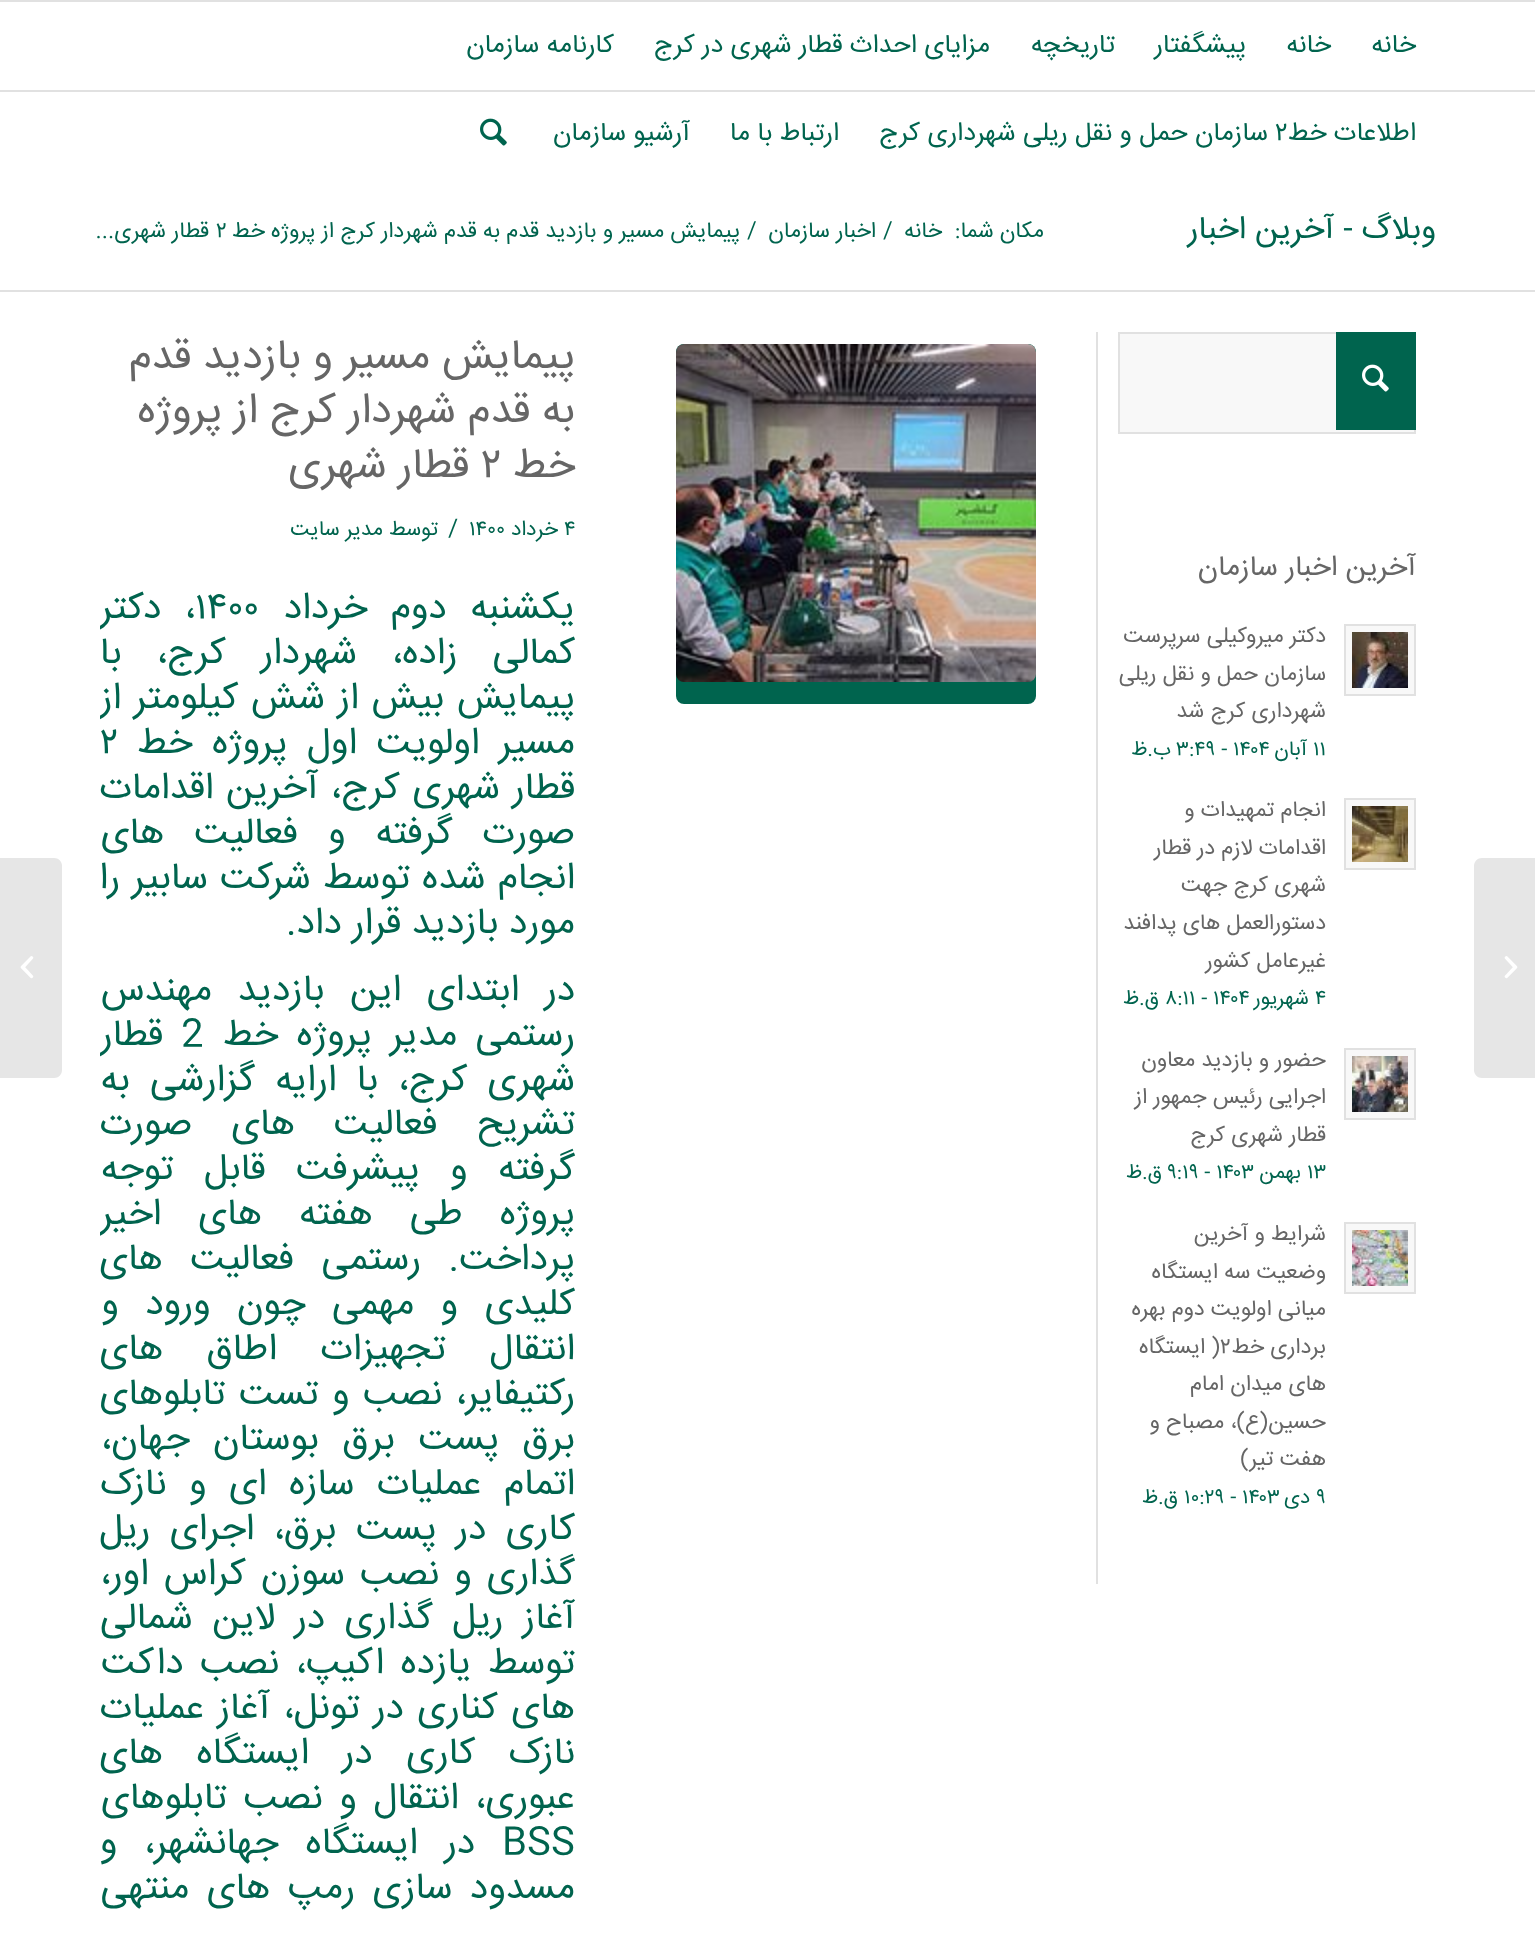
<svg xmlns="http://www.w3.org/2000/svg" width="1535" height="1936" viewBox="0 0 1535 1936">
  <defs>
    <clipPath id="clip1"><path d="M100 332h476v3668H100z"/></clipPath>
  </defs>
  <rect width="100%" height="100%" fill="#fff"/>
  <path d="M0 0h1535v2H0z" fill="#e1e1e1"/>
  <path d="M0 90h1535v2H0z" fill="#e1e1e1"/>
  <image x="480" y="118" width="27" height="28" href="img/1.png"/>
  <path d="M1482 858H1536V1078H1482C1477.5 1078 1474 1074.5 1474 1070V866C1474 861.5 1477.5 858 1482 858Z" fill="#e6e6e6"/>
  <image x="1504" y="956" width="14" height="23" href="img/2.png"/>
  <path d="M0 290h1535v2H0z" fill="#e1e1e1"/>
  <path d="M1096 332h2v1252H1096z" fill="#e1e1e1"/>
  <path d="M1119 333h296v100H1119z" fill="#f8f8f8" stroke="#e1e1e1" stroke-width="2"/>
  <path d="M1336 332h80v98H1336z" fill="#00644e"/>
  <image x="1362" y="364" width="27" height="28" href="img/3.png"/>
  <path d="M1345 625h70v70H1345z" fill="#f8f8f8" stroke="#e1e1e1" stroke-width="2"/>
  <image x="1352" y="632" width="56" height="56" href="img/4.png"/>
  <path d="M1345 799h70v70H1345z" fill="#f8f8f8" stroke="#e1e1e1" stroke-width="2"/>
  <image x="1352" y="806" width="56" height="56" href="img/5.png"/>
  <path d="M1345 1049h70v70H1345z" fill="#f8f8f8" stroke="#e1e1e1" stroke-width="2"/>
  <image x="1352" y="1056" width="56" height="56" href="img/6.png"/>
  <path d="M1345 1223h70v70H1345z" fill="#f8f8f8" stroke="#e1e1e1" stroke-width="2"/>
  <image x="1352" y="1230" width="56" height="56" href="img/7.png"/>
  <rect x="676" y="344" width="360" height="360" rx="8" fill="#00644e"/>
  <image x="676" y="344" width="360" height="338" href="img/8.png"/>
  <path d="M0 858H54C58.5 858 62 861.5 62 866V1070C62 1074.5 58.5 1078 54 1078H0Z" fill="#e6e6e6"/>
  <image x="20" y="956" width="14" height="23" href="img/9.png"/>
  <g font-family="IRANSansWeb" font-size="26" direction="rtl" fill="#00644e">
    <text x="1416" y="52">خانه</text>
    <text x="1331" y="52">خانه</text>
    <text x="1246" y="52">پیشگفتار</text>
    <text x="1115" y="52">تاریخچه</text>
    <text x="990" y="52">مزايای احداث قطار شهری در كرج</text>
    <text x="614" y="52">کارنامه سازمان</text>
    <text x="1416" y="140">اطلاعات خط</text>
  </g>
  <text x="1275" y="140" font-family="IRANSansWeb" font-size="26" fill="#00644e">۲</text>
  <g font-family="IRANSansWeb" font-size="26" direction="rtl" fill="#00644e">
    <text x="1268" y="140">سازمان حمل و نقل ریلی شهرداری کرج</text>
    <text x="839" y="140">ارتباط با ما</text>
    <text x="690" y="140">آرشیو سازمان</text>
  </g>
  <text x="1436" y="238" font-family="IRANSansWeb" font-size="32" direction="rtl" fill="#00644e">وبلاگ - آخرین اخبار</text>
  <g font-family="IRANSansWeb" font-size="22" direction="rtl" fill="#00644e">
    <text x="1044" y="237">مکان شما:</text>
    <text x="942" y="237">خانه</text>
  </g>
  <text x="883" y="237" font-family="IRANSansWeb" font-size="22" fill="#00644e">/</text>
  <text x="876" y="237" font-family="IRANSansWeb" font-size="22" direction="rtl" fill="#00644e">اخبار سازمان</text>
  <text x="747" y="237" font-family="IRANSansWeb" font-size="22" fill="#00644e">/</text>
  <text x="740" y="237" font-family="IRANSansWeb" font-size="22" direction="rtl" fill="#00644e">پیمایش مسیر و بازدید قدم به قدم شهردار کرج از پروژه خط</text>
  <text x="216" y="237" font-family="IRANSansWeb" font-size="22" fill="#00644e">۲</text>
  <text x="209" y="237" font-family="IRANSansWeb" font-size="22" direction="rtl" fill="#00644e">قطار شهری...</text>
  <text x="1416" y="575" font-family="IRANSansWeb" font-size="28.5" direction="rtl" fill="#666">آخرین اخبار سازمان</text>
  <g font-family="IRANSansWeb" font-size="22" direction="rtl" fill="#666">
    <text x="1326" y="642">دکتر میروکیلی سرپرست</text>
    <text x="1326" y="680">سازمان حمل و نقل ریلی</text>
    <text x="1326" y="717">شهرداری کرج شد</text>
  </g>
  <text x="1313" y="755" font-family="IRANSansWeb" font-size="20.5" fill="#00644e">۱۱</text>
  <text x="1307" y="755" font-family="IRANSansWeb" font-size="20.5" direction="rtl" fill="#00644e">آبان</text>
  <text x="1176" y="755" font-family="IRANSansWeb" font-size="20.5" fill="#00644e">۳:۴۹ - ۱۴۰۴</text>
  <text x="1171" y="755" font-family="IRANSansWeb" font-size="20.5" direction="rtl" fill="#00644e">ب.ظ</text>
  <g font-family="IRANSansWeb" font-size="22" direction="rtl" fill="#666">
    <text x="1326" y="816">انجام تمهیدات و</text>
    <text x="1326" y="854">اقدامات لازم در قطار</text>
    <text x="1326" y="891">شهری کرج جهت</text>
    <text x="1326" y="929">دستورالعمل های پدافند</text>
    <text x="1326" y="967">غیرعامل کشور</text>
  </g>
  <text x="1315" y="1004" font-family="IRANSansWeb" font-size="20.5" fill="#00644e">۴</text>
  <text x="1309" y="1004" font-family="IRANSansWeb" font-size="20.5" direction="rtl" fill="#00644e">شهریور</text>
  <text x="1165" y="1004" font-family="IRANSansWeb" font-size="20.5" fill="#00644e">۸:۱۱ - ۱۴۰۴</text>
  <text x="1159" y="1004" font-family="IRANSansWeb" font-size="20.5" direction="rtl" fill="#00644e">ق.ظ</text>
  <g font-family="IRANSansWeb" font-size="22" direction="rtl" fill="#666">
    <text x="1326" y="1066">حضور و بازدید معاون</text>
    <text x="1326" y="1103">اجرایی رئیس جمهور از</text>
    <text x="1326" y="1141">قطار شهری کرج</text>
  </g>
  <text x="1307" y="1178" font-family="IRANSansWeb" font-size="20.5" fill="#00644e">۱۳</text>
  <text x="1301" y="1178" font-family="IRANSansWeb" font-size="20.5" direction="rtl" fill="#00644e">بهمن</text>
  <text x="1167" y="1178" font-family="IRANSansWeb" font-size="20.5" fill="#00644e">۹:۱۹ - ۱۴۰۳</text>
  <text x="1162" y="1178" font-family="IRANSansWeb" font-size="20.5" direction="rtl" fill="#00644e">ق.ظ</text>
  <g font-family="IRANSansWeb" font-size="22" direction="rtl" fill="#666">
    <text x="1326" y="1240">شرایط و آخرین</text>
    <text x="1326" y="1278">وضعیت سه ایستگاه</text>
    <text x="1326" y="1315">میانی اولویت دوم بهره</text>
    <text x="1326" y="1353">برداری خط</text>
  </g>
  <text x="1220" y="1353" font-family="IRANSansWeb" font-size="22" fill="#666">۲</text>
  <g font-family="IRANSansWeb" font-size="22" direction="rtl" fill="#666">
    <text x="1220" y="1353">( ایستگاه</text>
    <text x="1326" y="1390">های میدان امام</text>
    <text x="1326" y="1428">حسین(ع)، مصباح و</text>
    <text x="1326" y="1465">هفت تیر)</text>
  </g>
  <text x="1316" y="1503" font-family="IRANSansWeb" font-size="20.5" fill="#00644e">۹</text>
  <text x="1310" y="1503" font-family="IRANSansWeb" font-size="20.5" direction="rtl" fill="#00644e">دی</text>
  <text x="1184" y="1503" font-family="IRANSansWeb" font-size="20.5" fill="#00644e">۱۰:۲۹ - ۱۴۰۳</text>
  <text x="1178" y="1503" font-family="IRANSansWeb" font-size="20.5" direction="rtl" fill="#00644e">ق.ظ</text>
  <g font-family="IRANSansWeb" font-size="42" direction="rtl" fill="#666">
    <text x="575" y="368">پیمایش مسیر و بازدید قدم</text>
    <text x="575" y="422">به قدم شهردار کرج از پروژه</text>
    <text x="575" y="477">خط</text>
  </g>
  <text x="481" y="477" font-family="IRANSansWeb" font-size="42" fill="#666">۲</text>
  <text x="469" y="477" font-family="IRANSansWeb" font-size="42" direction="rtl" fill="#666">قطار شهری</text>
  <text x="564" y="535" font-family="IRANSansWeb" font-size="21" fill="#00644e">۴</text>
  <text x="558" y="535" font-family="IRANSansWeb" font-size="21" direction="rtl" fill="#00644e">خرداد</text>
  <text x="469" y="535" font-family="IRANSansWeb" font-size="21" fill="#00644e">۱۴۰۰</text>
  <text x="448" y="535" font-family="IRANSansWeb" font-size="23" fill="#00644e">/</text>
  <g font-family="IRANSansWeb" font-size="21" direction="rtl" fill="#00644e">
    <text x="438" y="535">توسط</text>
    <text x="383" y="535">مدیر سایت</text>
  </g>
  <text x="575" y="618" word-spacing="13" font-family="IRANSansWeb" font-size="37.3" direction="rtl" fill="#00644e">یکشنبه دوم خرداد</text>
  <text x="195" y="618" font-family="IRANSansWeb" font-size="37.3" fill="#00644e">۱۴۰۰</text>
  <g clip-path="url(#clip1)">
    <text x="195" y="618" word-spacing="13" font-family="IRANSansWeb" font-size="37.3" direction="rtl" fill="#00644e">، دکتر</text>
  </g>
  <text x="575" y="663" word-spacing="24.5" font-family="IRANSansWeb" font-size="37.3" direction="rtl" fill="#00644e">کمالی زاده، شهردار کرج، با</text>
  <g clip-path="url(#clip1)">
    <text x="575" y="708" word-spacing="2.25" font-family="IRANSansWeb" font-size="37.3" direction="rtl" fill="#00644e">پیمایش بیش از شش کیلومتر از</text>
  </g>
  <text x="575" y="753" word-spacing="9" font-family="IRANSansWeb" font-size="37.3" direction="rtl" fill="#00644e">مسیر اولویت اول پروژه خط</text>
  <text x="100" y="753" font-family="IRANSansWeb" font-size="37.3" fill="#00644e">۲</text>
  <g font-family="IRANSansWeb" font-size="37.3" direction="rtl" fill="#00644e">
    <text x="575" y="798" word-spacing="2">قطار شهری کرج، آخرین اقدامات</text>
    <text x="575" y="843" word-spacing="19.5">صورت گرفته و فعالیت های</text>
    <text x="575" y="888" word-spacing="1.5">انجام شده توسط شرکت سابیر را</text>
    <text x="575" y="933">مورد بازدید قرار داد.</text>
    <text x="575" y="1000" word-spacing="15">در ابتدای این بازدید مهندس</text>
    <text x="575" y="1045" word-spacing="8">رستمی مدیر پروژه خط</text>
  </g>
  <text x="181" y="1045" font-family="IRANSansWeb" font-size="37.3" fill="#00644e">2</text>
  <g clip-path="url(#clip1)">
    <text x="163" y="1045" font-family="IRANSansWeb" font-size="37.3" direction="rtl" fill="#00644e">قطار</text>
  </g>
  <g font-family="IRANSansWeb" font-size="37.3" direction="rtl" fill="#00644e">
    <text x="575" y="1090" word-spacing="9.5">شهری کرج، با ارایه گزارشی به</text>
    <text x="575" y="1134" word-spacing="28.5">تشریح فعالیت های صورت</text>
    <text x="575" y="1179" word-spacing="20">گرفته و پیشرفت قابل توجه</text>
  </g>
  <g clip-path="url(#clip1)">
    <text x="575" y="1224" word-spacing="26.5" font-family="IRANSansWeb" font-size="37.3" direction="rtl" fill="#00644e">پروژه طی هفته های اخیر</text>
  </g>
  <g font-family="IRANSansWeb" font-size="37.3" direction="rtl" fill="#00644e">
    <text x="575" y="1269" word-spacing="17">پرداخت. رستمی فعالیت های</text>
    <text x="575" y="1314" word-spacing="16">کلیدی و مهمی چون ورود و</text>
    <text x="575" y="1359" word-spacing="33">انتقال تجهیزات اطاق های</text>
    <text x="575" y="1404" word-spacing="3">رکتیفایر، نصب و تست تابلوهای</text>
    <text x="575" y="1449" word-spacing="13">برق پست برق بوستان جهان،</text>
    <text x="575" y="1494" word-spacing="12">اتمام عملیات سازه ای و نازک</text>
    <text x="575" y="1539" word-spacing="9">کاری در پست برق، اجرای ریل</text>
    <text x="575" y="1584" word-spacing="4.5">گذاری و نصب سوزن کراس اور،</text>
    <text x="575" y="1628" word-spacing="9">آغاز ریل گذاری در لاین شمالی</text>
    <text x="575" y="1673" word-spacing="6">توسط یازده اکیپ، نصب داکت</text>
    <text x="575" y="1718" word-spacing="3">های کناری در تونل، آغاز عملیات</text>
    <text x="575" y="1763" word-spacing="23">نازک کاری در ایستگاه های</text>
    <text x="575" y="1808" word-spacing="6">عبوری، انتقال و نصب تابلوهای</text>
  </g>
  <text x="502" y="1853" font-family="IRANSansWeb" font-size="37.3" fill="#00644e">BSS</text>
  <g font-family="IRANSansWeb" font-size="37.3" direction="rtl" fill="#00644e">
    <text x="475" y="1853" word-spacing="16.5">در ایستگاه جهانشهر، و</text>
    <text x="575" y="1898" word-spacing="7">مسدود سازی رمپ های منتهی</text>
  </g>
</svg>
